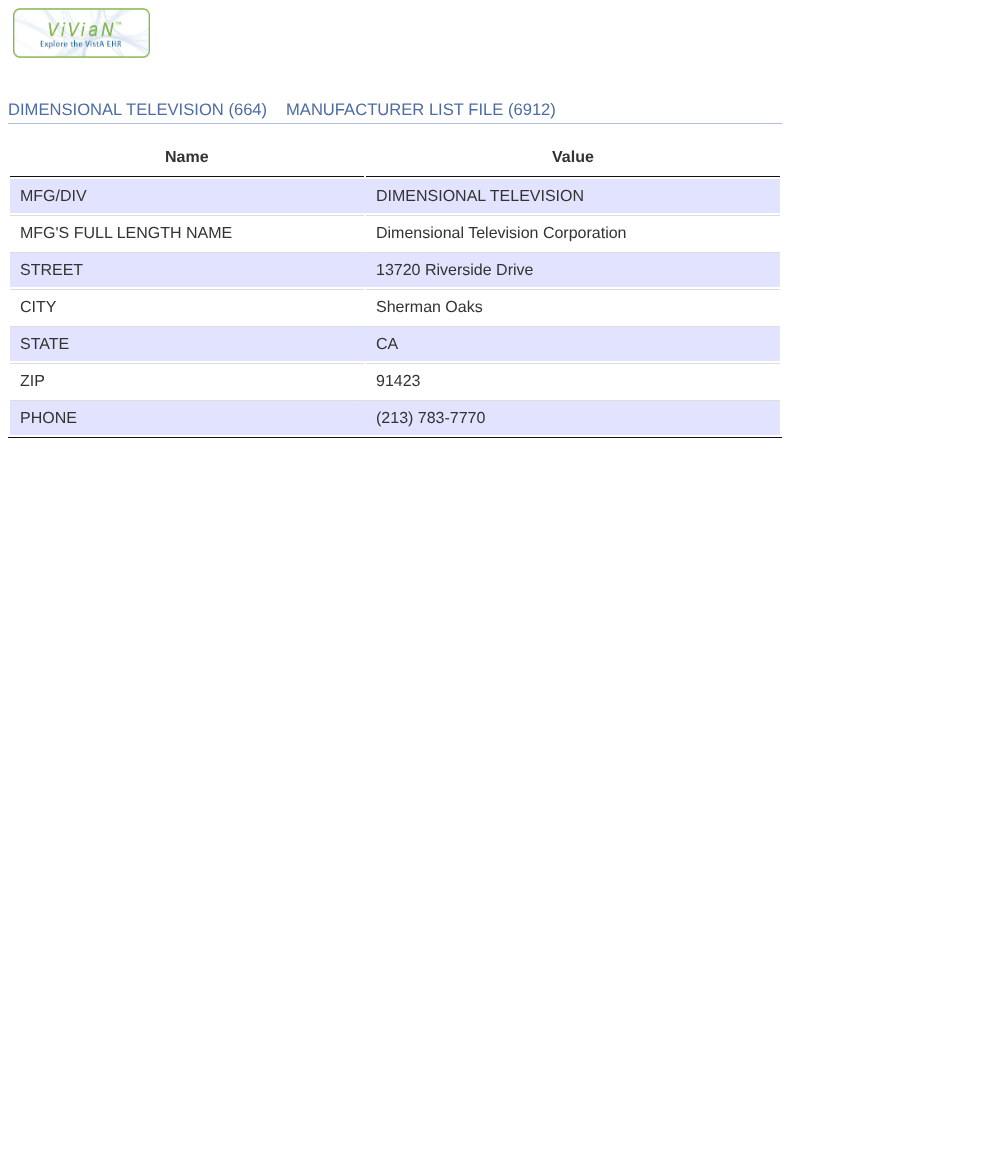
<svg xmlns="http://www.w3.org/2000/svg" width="983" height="1161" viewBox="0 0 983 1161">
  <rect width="100%" height="100%" fill="#fff"/>
  <image x="13" y="8" width="137" height="50" href="img/1.png"/>
  <path d="M8 123h774v1H8z" fill="#b0bed9"/>
  <path d="M8 437h774v1H8z" fill="#111"/>
  <path d="M10 176h354v1H10z" fill="#111"/>
  <path d="M366 176h414v1H366z" fill="#111"/>
  <path d="M10 179h770v34H10z" fill="#e2e4ff"/>
  <path d="M10 215h354v1H10z" fill="#ddd"/>
  <path d="M366 215h414v1H366z" fill="#ddd"/>
  <path d="M10 252h770v35H10z" fill="#e2e4ff"/>
  <path d="M10 252h354v1H10z" fill="#ddd"/>
  <path d="M366 252h414v1H366z" fill="#ddd"/>
  <path d="M10 289h354v1H10z" fill="#ddd"/>
  <path d="M366 289h414v1H366z" fill="#ddd"/>
  <path d="M10 326h770v35H10z" fill="#e2e4ff"/>
  <path d="M10 326h354v1H10z" fill="#ddd"/>
  <path d="M366 326h414v1H366z" fill="#ddd"/>
  <path d="M10 363h354v1H10z" fill="#ddd"/>
  <path d="M366 363h414v1H366z" fill="#ddd"/>
  <path d="M10 400h770v35H10z" fill="#e2e4ff"/>
  <path d="M10 400h354v1H10z" fill="#ddd"/>
  <path d="M366 400h414v1H366z" fill="#ddd"/>
  <g font-family="Liberation Sans" font-size="16.6" fill="#4e6ca3">
    <text x="8" y="115">DIMENSIONAL TELEVISION (664)</text>
    <text x="286" y="115">MANUFACTURER LIST FILE (6912)</text>
  </g>
  <g font-family="Liberation Sans" font-size="16" font-weight="bold" fill="#333">
    <text x="165" y="162">Name</text>
    <text x="552" y="162">Value</text>
  </g>
  <g font-family="Liberation Sans" font-size="16" fill="#333">
    <text x="20" y="201">MFG/DIV</text>
    <text x="376" y="201">DIMENSIONAL TELEVISION</text>
    <text x="20" y="238">MFG'S FULL LENGTH NAME</text>
    <text x="376" y="238">Dimensional Television Corporation</text>
    <text x="20" y="275">STREET</text>
    <text x="376" y="275">13720 Riverside Drive</text>
    <text x="20" y="312">CITY</text>
    <text x="376" y="312">Sherman Oaks</text>
    <text x="20" y="349">STATE</text>
    <text x="376" y="349">CA</text>
    <text x="20" y="386">ZIP</text>
    <text x="376" y="386">91423</text>
    <text x="20" y="423">PHONE</text>
    <text x="376" y="423">(213) 783-7770</text>
  </g>
</svg>
